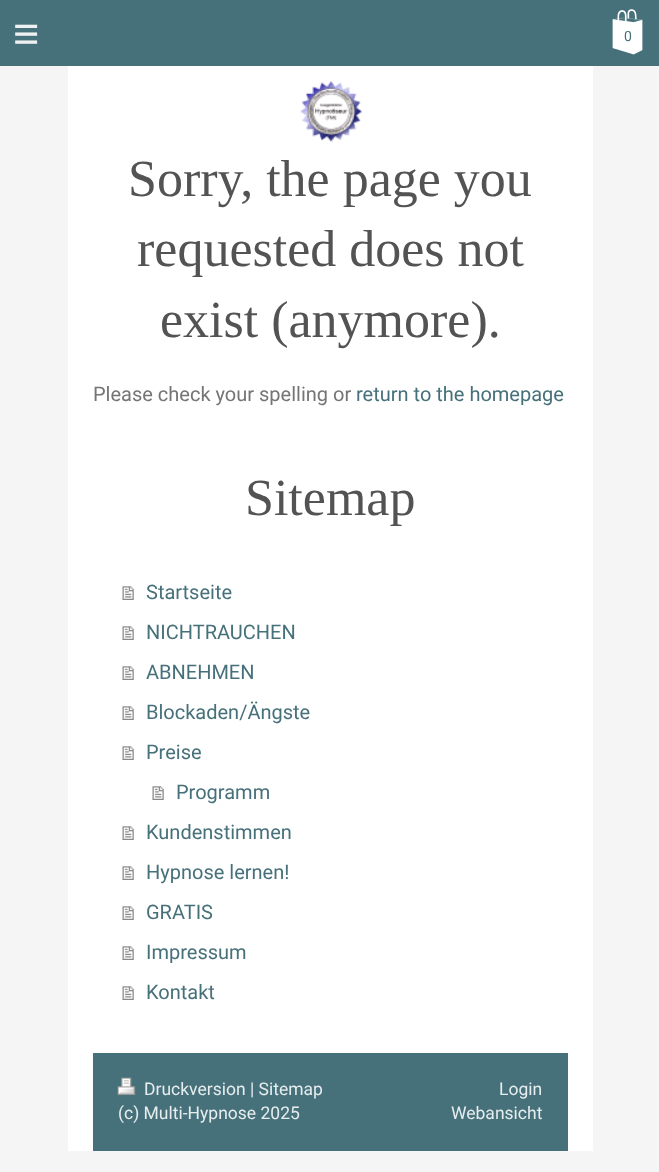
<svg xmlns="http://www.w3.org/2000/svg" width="659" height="1172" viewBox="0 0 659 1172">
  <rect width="100%" height="100%" fill="#f5f5f5"/>
  <path d="M0 0h659v66H0z" fill="#47717a"/>
  <image x="612" y="9" width="31" height="46" href="img/1.png"/>
  <path d="M68 66h525v1085H68z" fill="#fff"/>
  <image x="122" y="586" width="12" height="14" href="img/2.png"/>
  <image x="122" y="626" width="12" height="14" href="img/3.png"/>
  <image x="122" y="666" width="12" height="14" href="img/3.png"/>
  <image x="122" y="706" width="12" height="14" href="img/3.png"/>
  <image x="122" y="746" width="12" height="14" href="img/3.png"/>
  <image x="152" y="786" width="12" height="14" href="img/3.png"/>
  <image x="122" y="826" width="12" height="14" href="img/3.png"/>
  <image x="122" y="866" width="12" height="14" href="img/3.png"/>
  <image x="122" y="906" width="12" height="14" href="img/3.png"/>
  <image x="122" y="946" width="12" height="14" href="img/3.png"/>
  <image x="122" y="986" width="12" height="14" href="img/3.png"/>
  <image x="300" y="81" width="63" height="61" href="img/4.png"/>
  <path d="M93 1053h475v98H93z" fill="#47717a"/>
  <image x="117" y="1077" width="19" height="18" href="img/5.png"/>
  <text x="13" y="49" font-family="Liberation Sans" font-size="45" letter-spacing="13" fill="#edf1f2">≡</text>
  <text x="624" y="41" font-family="Roboto" font-size="14" fill="#47717a">0</text>
  <g font-family="Liberation Serif" font-size="52" fill="#535353">
    <text x="128" y="196">Sorry, the page you</text>
    <text x="137" y="266">requested does not</text>
    <text x="160" y="337">exist (anymore).</text>
  </g>
  <text x="93" y="401" font-family="Roboto" font-size="20" fill="#757575">Please check your spelling or</text>
  <text x="356" y="401" font-family="Roboto" font-size="20" fill="#47717a">return to the homepage</text>
  <text x="245" y="515" font-family="Liberation Serif" font-size="52" fill="#535353">Sitemap</text>
  <g font-family="Roboto" font-size="20" fill="#47717a">
    <text x="146" y="599">Startseite</text>
    <text x="146" y="639">NICHTRAUCHEN</text>
    <text x="146" y="679">ABNEHMEN</text>
    <text x="146" y="719">Blockaden/Ängste</text>
    <text x="146" y="759">Preise</text>
    <text x="176" y="799">Programm</text>
    <text x="146" y="839">Kundenstimmen</text>
    <text x="146" y="879">Hypnose lernen!</text>
    <text x="146" y="919">GRATIS</text>
    <text x="146" y="959">Impressum</text>
    <text x="146" y="999">Kontakt</text>
  </g>
  <g font-family="Roboto" font-size="17.5" fill="#e6edee">
    <text x="144" y="1095">Druckversion | Sitemap</text>
    <text x="118" y="1119">(c) Multi-Hypnose 2025</text>
    <text x="499" y="1095">Login</text>
    <text x="451" y="1119">Webansicht</text>
  </g>
</svg>
